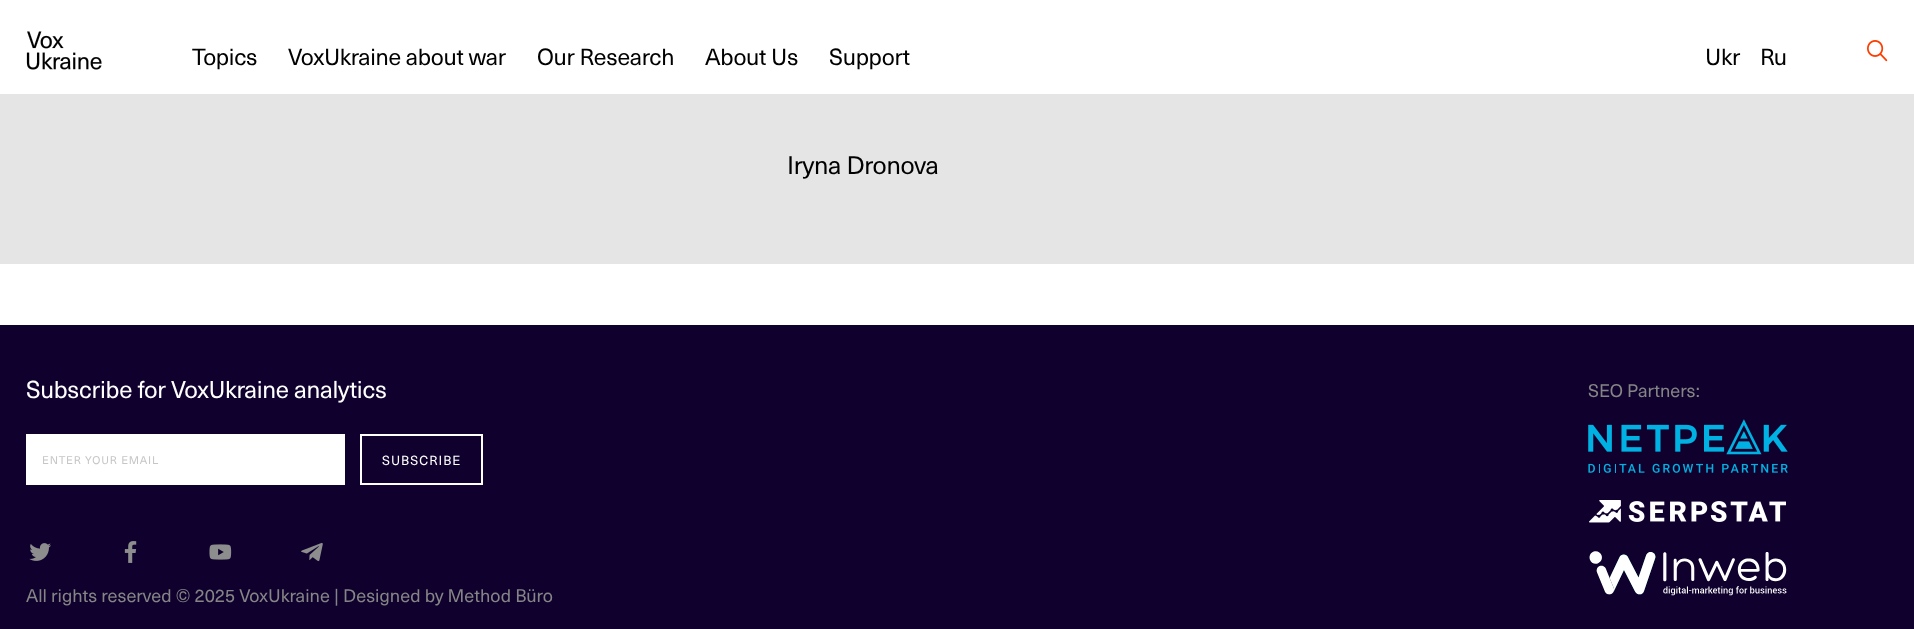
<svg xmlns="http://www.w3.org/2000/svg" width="1914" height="629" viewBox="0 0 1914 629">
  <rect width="100%" height="100%" fill="#fff"/>
  <image x="26" y="31" width="76" height="39" href="img/1.png"/>
  <image x="1867" y="40" width="21" height="22" href="img/2.png"/>
  <path d="M0 94h1914v170H0z" fill="#e5e5e5"/>
  <path d="M0 325h1914v304H0z" fill="#0f002e"/>
  <path d="M26 434h319v51H26z" fill="#fff"/>
  <path d="M361 435h121v49H361z" fill="none" stroke="#fff" stroke-width="2"/>
  <image x="29" y="543" width="22" height="18" href="img/3.png"/>
  <image x="124" y="541" width="13" height="22" href="img/4.png"/>
  <image x="209" y="544" width="23" height="16" href="img/5.png"/>
  <image x="301" y="542" width="22" height="20" href="img/6.png"/>
  <image x="1588" y="419" width="200" height="54" href="img/7.png"/>
  <image x="1589" y="500" width="197" height="23" href="img/8.png"/>
  <image x="1589" y="551" width="198" height="45" href="img/9.png"/>
  <g font-family="'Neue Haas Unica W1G'" font-size="23" letter-spacing="-0.3" fill="#010101">
    <text x="192" y="65">Topics</text>
    <text x="288" y="65">VoxUkraine about war</text>
    <text x="537" y="65">Our Research</text>
    <text x="705" y="65">About Us</text>
    <text x="829" y="65">Support</text>
    <text x="1705" y="65">Ukr</text>
    <text x="1760" y="65">Ru</text>
  </g>
  <text x="787" y="174" font-family="'Neue Haas Unica W1G'" font-size="25" letter-spacing="-0.3" fill="#010101">Iryna Dronova</text>
  <text x="26" y="398" font-family="'Neue Haas Unica W1G'" font-size="24" letter-spacing="-0.3" fill="#fff">Subscribe for VoxUkraine analytics</text>
  <text x="42" y="464" font-family="'Neue Haas Unica W1G'" font-size="11" letter-spacing="0.9" fill="#c6c6c6">ENTER YOUR EMAIL</text>
  <text x="382" y="465" font-family="'Neue Haas Unica W1G'" font-size="13" letter-spacing="1" fill="#fff">SUBSCRIBE</text>
  <g font-family="'Neue Haas Unica W1G'" font-size="18" fill="#858585">
    <text x="26" y="602">All rights reserved © 2025 VoxUkraine | Designed by Method Büro</text>
    <text x="1588" y="397">SEO Partners:</text>
  </g>
</svg>
